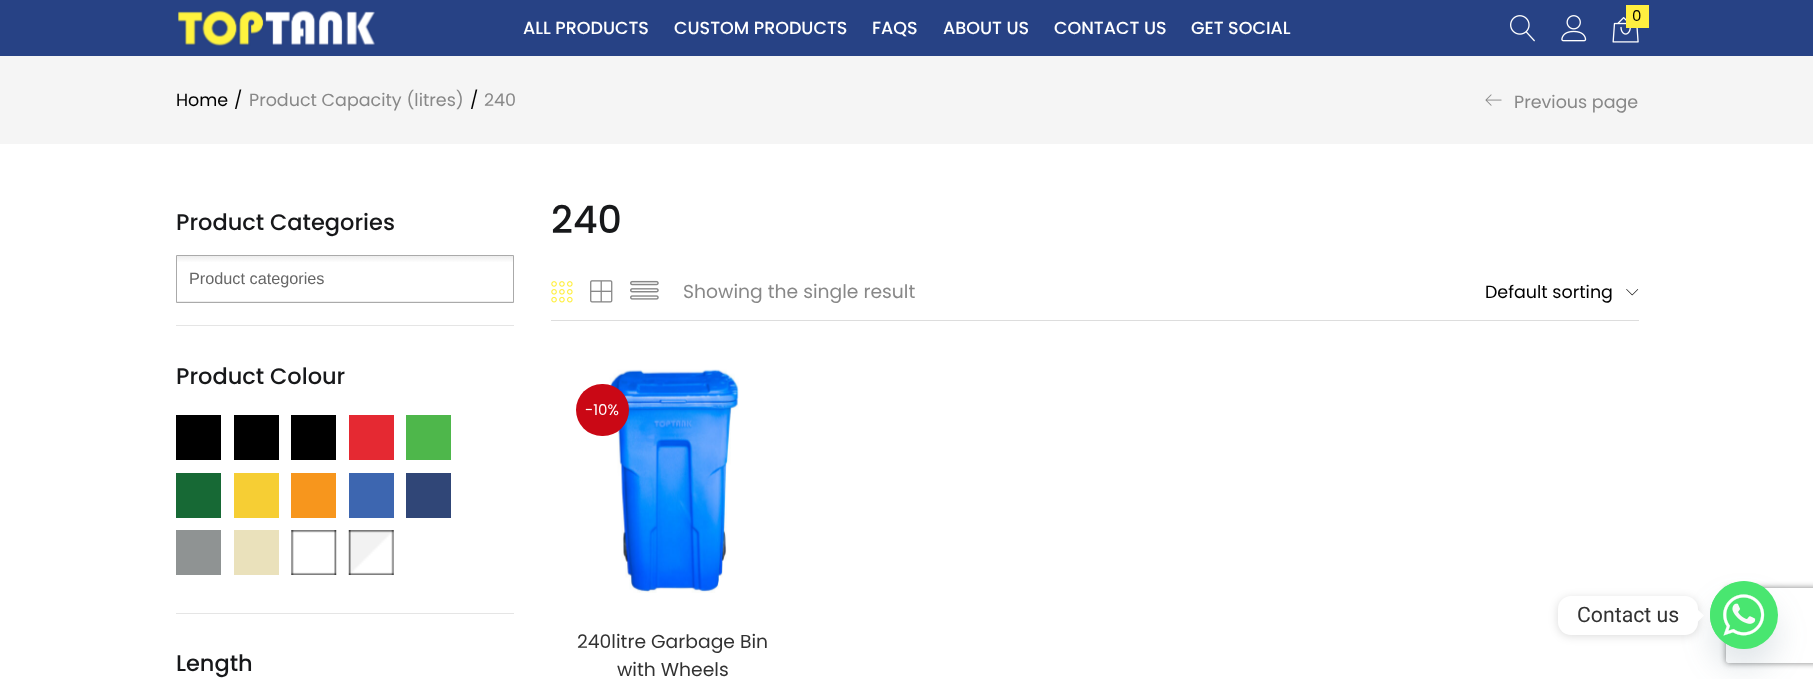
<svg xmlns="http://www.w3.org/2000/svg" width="1813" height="679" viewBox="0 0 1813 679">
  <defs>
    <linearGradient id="g1" gradientUnits="userSpaceOnUse" x1="345" y1="256" x2="345" y2="301"><stop offset="0.01" stop-color="#eee"/><stop offset="0.15" stop-color="#fff"/></linearGradient>
    <linearGradient id="g2" gradientUnits="userSpaceOnUse" x1="345" y1="301" x2="345" y2="346"><stop offset="0.01" stop-color="#eee"/><stop offset="0.15" stop-color="#fff"/></linearGradient>
    <clipPath id="clip1"><path d="M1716 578H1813V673H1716ZM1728.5 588H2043.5C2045 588 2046 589 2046 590.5V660.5C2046 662 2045 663 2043.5 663H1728.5C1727 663 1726 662 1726 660.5V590.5C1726 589 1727 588 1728.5 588Z" clip-rule="evenodd"/></clipPath>
  </defs>
  <rect width="100%" height="100%" fill="#fff"/>
  <path d="M0 0h1813v56H0z" fill="#274285"/>
  <image x="178" y="10" width="197" height="36" href="img/1.png"/>
  <image x="1510" y="15" width="25" height="27" href="img/2.png"/>
  <image x="1561" y="15" width="26" height="27" href="img/3.png"/>
  <image x="1612" y="17" width="27" height="26" href="img/4.png"/>
  <path d="M1626 5h23v23H1626z" fill="#ffef40"/>
  <path d="M0 56h1813v88H0z" fill="#f5f5f5"/>
  <image x="1485" y="94" width="17" height="12" href="img/5.png"/>
  <path d="M176 325h338v1H176z" fill="#e5e5e5"/>
  <path d="M177 256h336v6H177z" fill="url(#g1)"/>
  <path d="M176 301h338v1H176z" fill="url(#g2)"/>
  <path d="M176.5 255.5h337v47H176.5z" fill="none" stroke="#aaa"/>
  <path d="M176 613h338v1H176z" fill="#e5e5e5"/>
  <path d="M176 415h45v45H176z" fill="#000"/>
  <path d="M234 415h45v45H234z" fill="#000"/>
  <path d="M291 415h45v45H291z" fill="#000"/>
  <path d="M349 415h45v45H349z" fill="#e52932"/>
  <path d="M406 415h45v45H406z" fill="#4eb74b"/>
  <path d="M176 473h45v45H176z" fill="#176935"/>
  <path d="M234 473h45v45H234z" fill="#f6ce34"/>
  <path d="M291 473h45v45H291z" fill="#f7961d"/>
  <path d="M349 473h45v45H349z" fill="#3d66b0"/>
  <path d="M406 473h45v45H406z" fill="#304677"/>
  <path d="M176 530h45v45H176z" fill="#8f9393"/>
  <path d="M234 530h45v45H234z" fill="#eae1bb"/>
  <image x="291" y="530" width="46" height="45" href="img/6.png"/>
  <image x="348" y="530" width="46" height="45" href="img/7.png"/>
  <path d="M551 320h1088v1H551z" fill="#ddd"/>
  <image x="551" y="281" width="22" height="22" href="img/8.png"/>
  <image x="590" y="280" width="23" height="23" href="img/9.png"/>
  <image x="630" y="280" width="29" height="20" href="img/10.png"/>
  <image x="1626" y="289" width="13" height="7" href="img/11.png"/>
  <image x="606" y="369" width="133" height="224" href="img/12.png"/>
  <rect x="576" y="384" width="53" height="52" rx="26" fill="#ca0815"/>
  <g clip-path="url(#clip1)">
    <rect x="1726" y="588" width="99" height="75" rx="2.5" fill="#808080" filter="blur(3px)"/>
  </g>
  <rect x="1710" y="601" width="68" height="68" rx="34" fill="#49687e29" filter="blur(15px)"/>
  <circle cx="1744" cy="615" r="34" fill="#49e670"/>
  <image x="1710" y="581" width="55" height="68" href="img/13.png"/>
  <rect x="1558" y="598" width="140" height="38" rx="13" fill="#00000026" filter="blur(5px)"/>
  <rect x="1558" y="596" width="140" height="39" rx="13" fill="#fff"/>
  <path d="M1697.5 622V609.5L1704 615.5Z" fill="#fff"/>
  <text x="1632" y="21" font-family="Poppins" font-size="15" fill="#000">0</text>
  <g font-family="Poppins" font-size="17.5" font-weight="500" fill="#fff">
    <text x="523" y="34">ALL PRODUCTS</text>
    <text x="674" y="34">CUSTOM PRODUCTS</text>
    <text x="872" y="34">FAQS</text>
    <text x="943" y="34">ABOUT US</text>
    <text x="1054" y="34">CONTACT US</text>
    <text x="1191" y="34">GET SOCIAL</text>
  </g>
  <g font-family="Poppins" font-size="17.5" fill="#000">
    <text x="176" y="106">Home</text>
    <text x="234" y="106">/</text>
  </g>
  <text x="249" y="106" font-family="Poppins" font-size="17.5" fill="#888">Product Capacity (litres)</text>
  <text x="470" y="106" font-family="Poppins" font-size="17.5" fill="#000">/</text>
  <g font-family="Poppins" font-size="17.5" fill="#888">
    <text x="484" y="106">240</text>
    <text x="1514" y="108">Previous page</text>
  </g>
  <text x="176" y="230" font-family="Poppins" font-size="22.5" font-weight="500" fill="#17181a">Product Categories</text>
  <text x="189" y="284" font-family="Liberation Sans" font-size="16.25" fill="#666">Product categories</text>
  <g font-family="Poppins" font-size="22.5" font-weight="500" fill="#17181a">
    <text x="176" y="384">Product Colour</text>
    <text x="176" y="671">Length</text>
  </g>
  <text x="551" y="233" font-family="Poppins" font-size="38" font-weight="500" fill="#17181a">240</text>
  <text x="683" y="298" font-family="Poppins" font-size="18.75" fill="#888">Showing the single result</text>
  <text x="1485" y="298" font-family="Poppins" font-size="17.5" fill="#000">Default sorting</text>
  <text x="585" y="415" font-family="Poppins" font-size="15" fill="#fff">-10%</text>
  <g font-family="Poppins" font-size="18.75" fill="#323232">
    <text x="577" y="648">240litre Garbage Bin</text>
    <text x="617" y="676">with Wheels</text>
  </g>
  <text x="1577" y="622" font-family="Roboto" font-size="21.25" fill="#323232">Contact us</text>
</svg>
